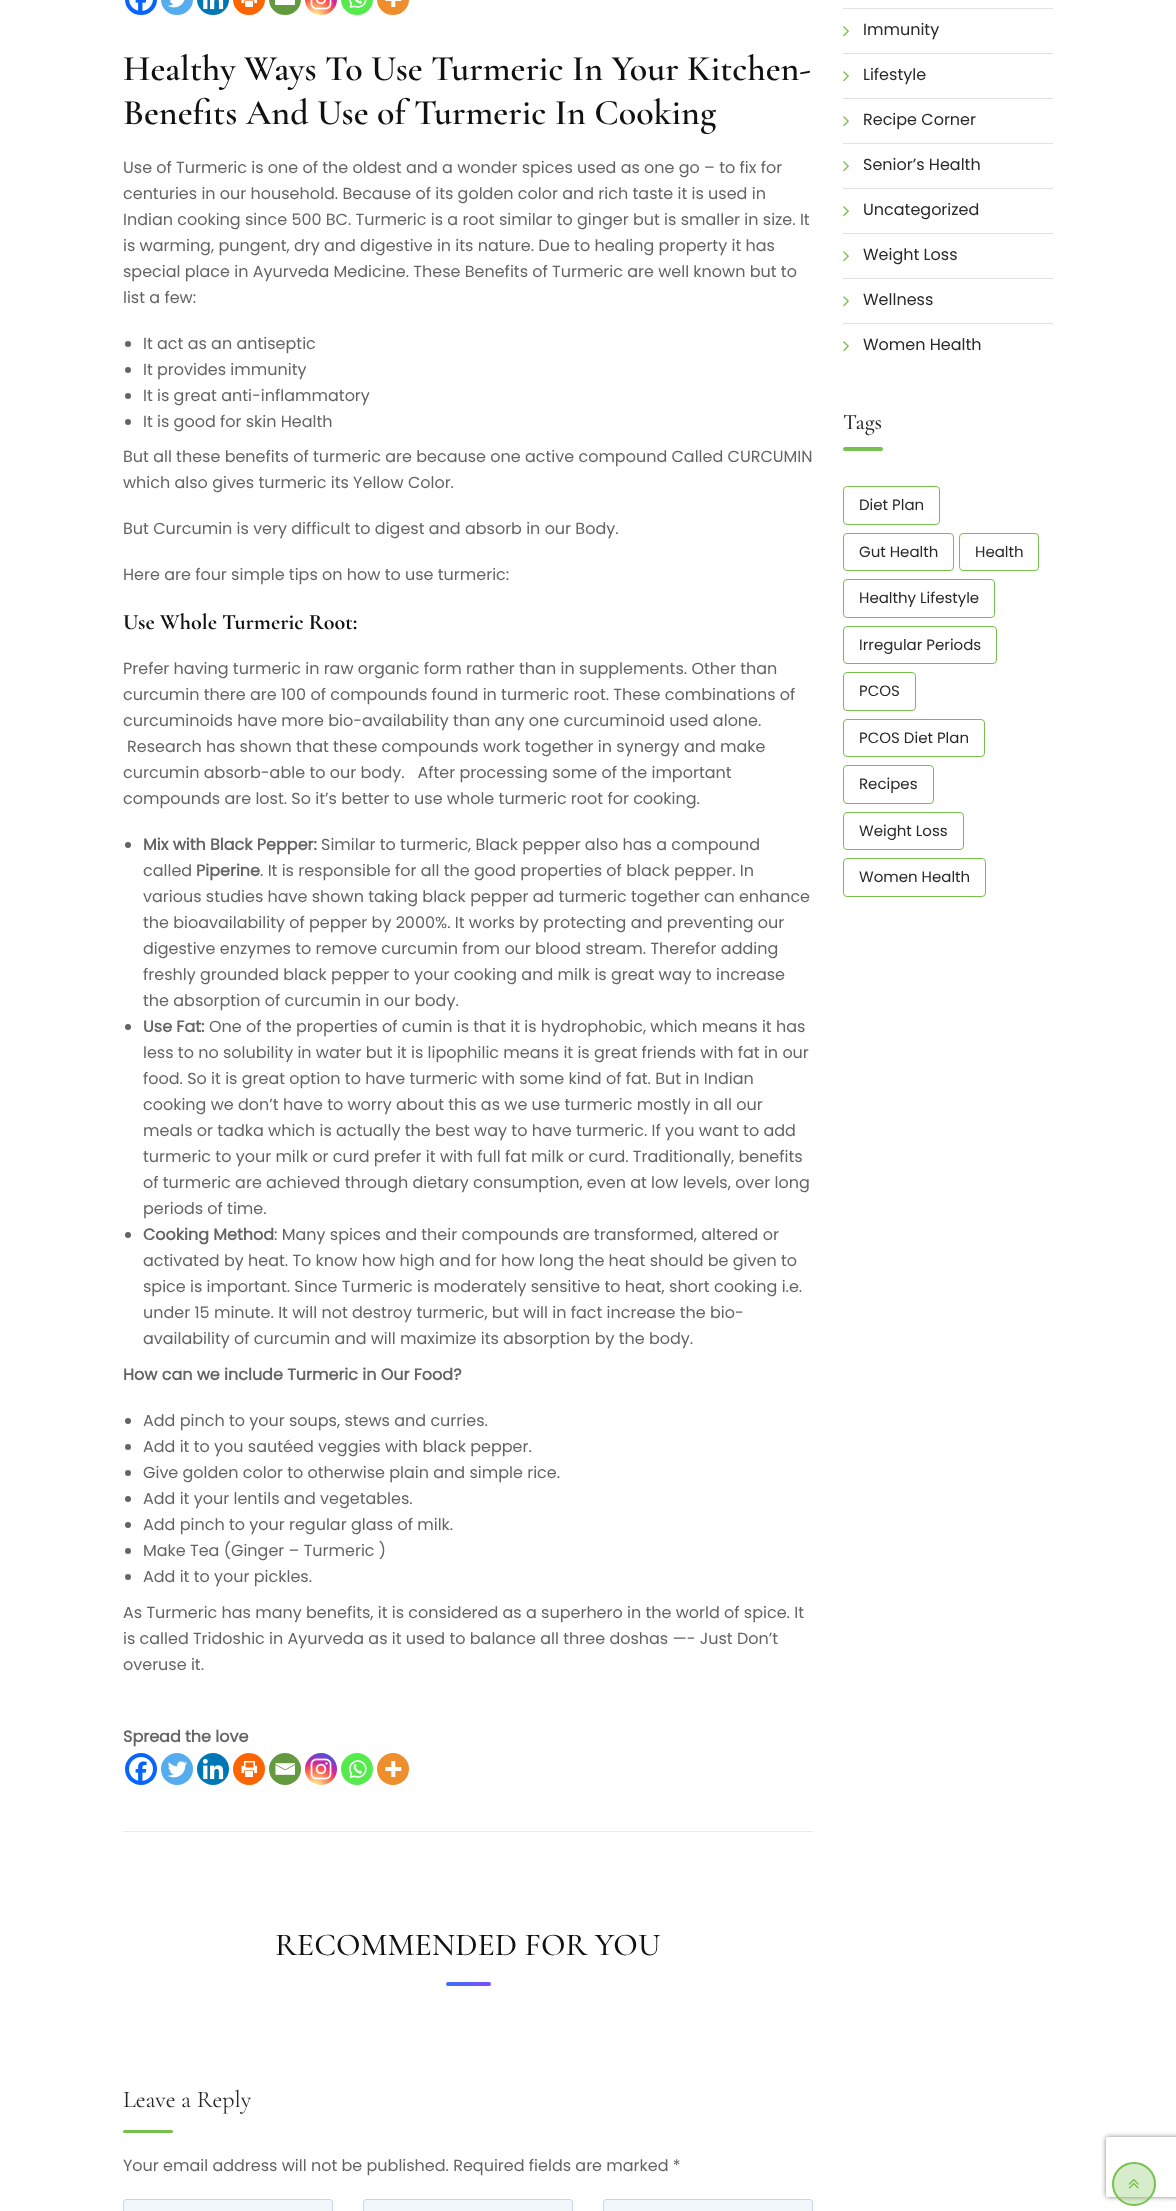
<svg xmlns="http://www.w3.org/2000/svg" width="1176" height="2211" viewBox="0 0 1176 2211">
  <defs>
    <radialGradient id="g1" gradientUnits="userSpaceOnUse" cx="315" cy="17" r="41"><stop offset="0" stop-color="#fdf497"/><stop offset="0.05" stop-color="#fdf497"/><stop offset="0.45" stop-color="#fd5949"/><stop offset="0.6" stop-color="#d6249f"/><stop offset="0.9" stop-color="#285aeb"/></radialGradient>
    <radialGradient id="g2" gradientUnits="userSpaceOnUse" cx="315" cy="1787" r="41"><stop offset="0" stop-color="#fdf497"/><stop offset="0.05" stop-color="#fdf497"/><stop offset="0.45" stop-color="#fd5949"/><stop offset="0.6" stop-color="#d6249f"/><stop offset="0.9" stop-color="#285aeb"/></radialGradient>
    <linearGradient id="g3" gradientUnits="userSpaceOnUse" x1="446" y1="1984" x2="491" y2="1984"><stop offset="0" stop-color="#3c70fa"/><stop offset="1" stop-color="#7c4dff"/></linearGradient>
    <clipPath id="clip1"><path d="M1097 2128H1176V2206H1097ZM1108 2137H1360C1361 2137 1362 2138 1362 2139V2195C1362 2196 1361 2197 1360 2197H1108C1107 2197 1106 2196 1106 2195V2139C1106 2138 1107 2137 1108 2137Z" clip-rule="evenodd"/></clipPath>
  </defs>
  <rect width="100%" height="100%" fill="#fff"/>
  <path d="M123 1831h690v1H123z" fill="#ebebeb"/>
  <rect x="125" y="-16" width="32" height="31" rx="16" fill="#0765fe"/>
  <image x="129" y="0" width="24" height="11" href="img/1.png"/>
  <rect x="161" y="-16" width="32" height="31" rx="16" fill="#55acee"/>
  <image x="167" y="0" width="18" height="8" href="img/2.png"/>
  <rect x="197" y="-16" width="32" height="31" rx="16" fill="#0077b5"/>
  <image x="203" y="0" width="21" height="10" href="img/3.png"/>
  <rect x="233" y="-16" width="32" height="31" rx="16" fill="#fd6500"/>
  <image x="241" y="0" width="17" height="7" href="img/4.png"/>
  <rect x="269" y="-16" width="32" height="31" rx="16" fill="#649a3f"/>
  <path d="M275 0h20v5H275z" fill="#fff"/>
  <rect x="305" y="-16" width="32" height="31" rx="16" fill="url(#g1)"/>
  <image x="310" y="0" width="22" height="10" href="img/5.png"/>
  <rect x="341" y="-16" width="32" height="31" rx="16" fill="#55eb4c"/>
  <image x="349" y="0" width="18" height="8" href="img/6.png"/>
  <rect x="377" y="-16" width="32" height="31" rx="16" fill="#ee8e2d"/>
  <image x="385" y="0" width="17" height="7" href="img/7.png"/>
  <circle cx="128" cy="344" r="3" fill="#646464"/>
  <circle cx="128" cy="370" r="3" fill="#646464"/>
  <circle cx="128" cy="396" r="3" fill="#646464"/>
  <circle cx="128" cy="422" r="3" fill="#646464"/>
  <circle cx="128" cy="845" r="3" fill="#646464"/>
  <circle cx="128" cy="1027" r="3" fill="#646464"/>
  <circle cx="128" cy="1235" r="3" fill="#646464"/>
  <circle cx="128" cy="1421" r="3" fill="#646464"/>
  <circle cx="128" cy="1447" r="3" fill="#646464"/>
  <circle cx="128" cy="1473" r="3" fill="#646464"/>
  <circle cx="128" cy="1499" r="3" fill="#646464"/>
  <circle cx="128" cy="1525" r="3" fill="#646464"/>
  <circle cx="128" cy="1551" r="3" fill="#646464"/>
  <circle cx="128" cy="1577" r="3" fill="#646464"/>
  <circle cx="141" cy="1769" r="16" fill="#0765fe"/>
  <image x="129" y="1757" width="24" height="24" href="img/8.png"/>
  <circle cx="177" cy="1769" r="16" fill="#55acee"/>
  <image x="167" y="1761" width="21" height="17" href="img/9.png"/>
  <circle cx="213" cy="1769" r="16" fill="#0077b5"/>
  <image x="202" y="1758" width="22" height="22" href="img/10.png"/>
  <circle cx="249" cy="1769" r="16" fill="#fd6500"/>
  <image x="241" y="1761" width="17" height="16" href="img/11.png"/>
  <circle cx="285" cy="1769" r="16" fill="#649a3f"/>
  <image x="275" y="1763" width="20" height="12" href="img/12.png"/>
  <circle cx="321" cy="1769" r="16" fill="url(#g2)"/>
  <image x="310" y="1758" width="22" height="22" href="img/13.png"/>
  <circle cx="357" cy="1769" r="16" fill="#55eb4c"/>
  <image x="349" y="1760" width="18" height="18" href="img/14.png"/>
  <circle cx="393" cy="1769" r="16" fill="#ee8e2d"/>
  <image x="385" y="1761" width="17" height="16" href="img/15.png"/>
  <rect x="446" y="1982" width="45" height="4" rx="2" fill="url(#g3)"/>
  <rect x="123" y="2130" width="50" height="3" rx="1.5" fill="#76c04e"/>
  <rect x="124" y="2200" width="208" height="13" rx="2" fill="#f1f7fa"/>
  <rect x="123.5" y="2199.5" width="209" height="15" rx="2.5" fill="none" stroke="#396cf04d"/>
  <rect x="364" y="2200" width="208" height="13" rx="2" fill="#f1f7fa"/>
  <rect x="363.5" y="2199.5" width="209" height="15" rx="2.5" fill="none" stroke="#396cf04d"/>
  <rect x="604" y="2200" width="208" height="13" rx="2" fill="#f1f7fa"/>
  <rect x="603.5" y="2199.5" width="209" height="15" rx="2.5" fill="none" stroke="#396cf04d"/>
  <path d="M843 8h210v1H843z" fill="#e0e0e0"/>
  <path d="M843 53h210v1H843z" fill="#e0e0e0"/>
  <image x="843" y="26" width="6" height="11" href="img/16.png"/>
  <path d="M843 98h210v1H843z" fill="#e0e0e0"/>
  <image x="843" y="71" width="6" height="11" href="img/16.png"/>
  <path d="M843 143h210v1H843z" fill="#e0e0e0"/>
  <image x="843" y="116" width="6" height="11" href="img/16.png"/>
  <path d="M843 188h210v1H843z" fill="#e0e0e0"/>
  <image x="843" y="161" width="6" height="11" href="img/16.png"/>
  <path d="M843 233h210v1H843z" fill="#e0e0e0"/>
  <image x="843" y="206" width="6" height="11" href="img/16.png"/>
  <path d="M843 278h210v1H843z" fill="#e0e0e0"/>
  <image x="843" y="251" width="6" height="11" href="img/16.png"/>
  <path d="M843 323h210v1H843z" fill="#e0e0e0"/>
  <image x="843" y="296" width="6" height="11" href="img/16.png"/>
  <image x="843" y="341" width="6" height="11" href="img/16.png"/>
  <rect x="843" y="447" width="40" height="4" rx="2" fill="#76c04e"/>
  <rect x="843.5" y="486.5" width="96" height="38" rx="3.5" fill="none" stroke="#76c04e"/>
  <rect x="843.5" y="533.5" width="110" height="37" rx="3.5" fill="none" stroke="#76c04e"/>
  <rect x="959.5" y="533.5" width="79" height="37" rx="3.5" fill="none" stroke="#76c04e"/>
  <rect x="843.5" y="579.5" width="151" height="38" rx="3.5" fill="none" stroke="#76c04e"/>
  <rect x="843.5" y="626.5" width="153" height="37" rx="3.5" fill="none" stroke="#76c04e"/>
  <rect x="843.5" y="672.5" width="72" height="38" rx="3.5" fill="none" stroke="#76c04e"/>
  <rect x="843.5" y="719.5" width="141" height="37" rx="3.5" fill="none" stroke="#76c04e"/>
  <rect x="843.5" y="765.5" width="90" height="38" rx="3.5" fill="none" stroke="#76c04e"/>
  <rect x="843.5" y="812.5" width="120" height="37" rx="3.5" fill="none" stroke="#76c04e"/>
  <rect x="843.5" y="858.5" width="142" height="38" rx="3.5" fill="none" stroke="#76c04e"/>
  <g clip-path="url(#clip1)">
    <rect x="1106" y="2137" width="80" height="60" rx="2" fill="#808080" filter="blur(2.5px)"/>
  </g>
  <circle cx="1134" cy="2184" r="21" fill="#76c04e4d" stroke="#76c04e" stroke-width="2"/>
  <image x="1128" y="2179" width="11" height="10" href="img/17.png"/>
  <g font-family="Cormorant Garamond" font-size="36" font-weight="600" fill="#111">
    <text x="123" y="80">Healthy Ways To Use Turmeric In Your Kitchen-</text>
    <text x="123" y="124">Benefits And Use of Turmeric In Cooking</text>
  </g>
  <g font-family="Poppins" font-size="16" fill="#646464">
    <text x="123" y="173">Use of Turmeric is one of the oldest and a wonder spices used as one go – to fix for</text>
    <text x="123" y="199">centuries in our household. Because of its golden color and rich taste it is used in</text>
    <text x="123" y="225">Indian cooking since 500 BC. Turmeric is a root similar to ginger but is smaller in size. It</text>
    <text x="123" y="251">is warming, pungent, dry and digestive in its nature. Due to healing property it has</text>
    <text x="123" y="277">special place in Ayurveda Medicine. These Benefits of Turmeric are well known but to</text>
    <text x="123" y="303">list a few:</text>
    <text x="143" y="349">It act as an antiseptic</text>
    <text x="143" y="375">It provides immunity</text>
    <text x="143" y="401">It is great anti-inflammatory</text>
    <text x="143" y="427">It is good for skin Health</text>
    <text x="123" y="462">But all these benefits of turmeric are because one active compound Called CURCUMIN</text>
    <text x="123" y="488">which also gives turmeric its Yellow Color.</text>
    <text x="123" y="534">But Curcumin is very difficult to digest and absorb in our Body.</text>
    <text x="123" y="580">Here are four simple tips on how to use turmeric:</text>
  </g>
  <text x="123" y="629" font-family="Cormorant Garamond" font-size="22" font-weight="300" fill="#111">Use Whole Turmeric Root:</text>
  <g font-family="Poppins" font-size="16" fill="#646464">
    <text x="123" y="674">Prefer having turmeric in raw organic form rather than in supplements. Other than</text>
    <text x="123" y="700">curcumin there are 100 of compounds found in turmeric root. These combinations of</text>
    <text x="123" y="726">curcuminoids have more bio-availability than any one curcuminoid used alone.</text>
    <text x="127" y="752">Research has shown that these compounds work together in synergy and make</text>
    <text x="123" y="778" xml:space="preserve">curcumin absorb-able to our body.   After processing some of the important</text>
    <text x="123" y="804">compounds are lost. So it’s better to use whole turmeric root for cooking.</text>
  </g>
  <text x="143" y="850" font-family="Poppins" font-size="16" font-weight="bold" fill="#646464">Mix with Black Pepper:</text>
  <g font-family="Poppins" font-size="16" fill="#646464">
    <text x="321" y="850">Similar to turmeric, Black pepper also has a compound</text>
    <text x="143" y="876">called</text>
  </g>
  <text x="196" y="876" font-family="Poppins" font-size="16" font-weight="bold" fill="#646464">Piperine</text>
  <g font-family="Poppins" font-size="16" fill="#646464">
    <text x="260" y="876">. It is responsible for all the good properties of black pepper. In</text>
    <text x="143" y="902">various studies have shown taking black pepper ad turmeric together can enhance</text>
    <text x="143" y="928">the bioavailability of pepper by 2000%. It works by protecting and preventing our</text>
    <text x="143" y="954">digestive enzymes to remove curcumin from our blood stream. Therefor adding</text>
    <text x="143" y="980">freshly grounded black pepper to your cooking and milk is great way to increase</text>
    <text x="143" y="1006">the absorption of curcumin in our body.</text>
  </g>
  <text x="143" y="1032" font-family="Poppins" font-size="16" font-weight="bold" fill="#646464">Use Fat:</text>
  <g font-family="Poppins" font-size="16" fill="#646464">
    <text x="209" y="1032">One of the properties of cumin is that it is hydrophobic, which means it has</text>
    <text x="143" y="1058">less to no solubility in water but it is lipophilic means it is great friends with fat in our</text>
    <text x="143" y="1084">food. So it is great option to have turmeric with some kind of fat. But in Indian</text>
    <text x="143" y="1110">cooking we don’t have to worry about this as we use turmeric mostly in all our</text>
    <text x="143" y="1136">meals or tadka which is actually the best way to have turmeric. If you want to add</text>
    <text x="143" y="1162">turmeric to your milk or curd prefer it with full fat milk or curd. Traditionally, benefits</text>
    <text x="143" y="1188">of turmeric are achieved through dietary consumption, even at low levels, over long</text>
    <text x="143" y="1214">periods of time.</text>
  </g>
  <text x="143" y="1240" font-family="Poppins" font-size="16" font-weight="bold" fill="#646464">Cooking Method</text>
  <g font-family="Poppins" font-size="16" fill="#646464">
    <text x="274" y="1240">: Many spices and their compounds are transformed, altered or</text>
    <text x="143" y="1266">activated by heat. To know how high and for how long the heat should be given to</text>
    <text x="143" y="1292">spice is important. Since Turmeric is moderately sensitive to heat, short cooking i.e.</text>
    <text x="143" y="1318">under 15 minute. It will not destroy turmeric, but will in fact increase the bio-</text>
    <text x="143" y="1344">availability of curcumin and will maximize its absorption by the body.</text>
  </g>
  <text x="123" y="1380" font-family="Poppins" font-size="16" font-weight="bold" fill="#646464">How can we include Turmeric in Our Food?</text>
  <g font-family="Poppins" font-size="16" fill="#646464">
    <text x="143" y="1426">Add pinch to your soups, stews and curries.</text>
    <text x="143" y="1452">Add it to you sautéed veggies with black pepper.</text>
    <text x="143" y="1478">Give golden color to otherwise plain and simple rice.</text>
    <text x="143" y="1504">Add it your lentils and vegetables.</text>
    <text x="143" y="1530">Add pinch to your regular glass of milk.</text>
    <text x="143" y="1556">Make Tea (Ginger – Turmeric )</text>
    <text x="143" y="1582">Add it to your pickles.</text>
    <text x="123" y="1618">As Turmeric has many benefits, it is considered as a superhero in the world of spice. It</text>
    <text x="123" y="1644">is called Tridoshic in Ayurveda as it used to balance all three doshas —- Just Don’t</text>
    <text x="123" y="1670">overuse it.</text>
  </g>
  <text x="123" y="1742" font-family="Poppins" font-size="16" font-weight="bold" fill="#646464">Spread the love</text>
  <text x="275" y="1955" font-family="'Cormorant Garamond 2'" font-size="32" font-weight="300" fill="#111">RECOMMENDED FOR YOU</text>
  <text x="123" y="2107" font-family="'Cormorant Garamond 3'" font-size="24" font-weight="300" fill="#282828">Leave a Reply</text>
  <text x="123" y="2171" font-family="Poppins" font-size="16" fill="#646464">Your email address will not be published. Required fields are marked *</text>
  <g font-family="Poppins" font-size="16" fill="#282828">
    <text x="863" y="35">Immunity</text>
    <text x="863" y="80">Lifestyle</text>
    <text x="863" y="125">Recipe Corner</text>
    <text x="863" y="170">Senior’s Health</text>
    <text x="863" y="215">Uncategorized</text>
    <text x="863" y="260">Weight Loss</text>
    <text x="863" y="305">Wellness</text>
    <text x="863" y="350">Women Health</text>
  </g>
  <text x="843" y="429" font-family="'Cormorant Garamond 2'" font-size="22" font-weight="300" fill="#282828">Tags</text>
  <g font-family="Poppins" font-size="15" fill="#282828">
    <text x="859" y="510">Diet Plan</text>
    <text x="859" y="557">Gut Health</text>
    <text x="975" y="557">Health</text>
    <text x="859" y="603">Healthy Lifestyle</text>
    <text x="859" y="650">Irregular Periods</text>
    <text x="859" y="696">PCOS</text>
    <text x="859" y="743">PCOS Diet Plan</text>
    <text x="859" y="789">Recipes</text>
    <text x="859" y="836">Weight Loss</text>
    <text x="859" y="882">Women Health</text>
  </g>
</svg>
